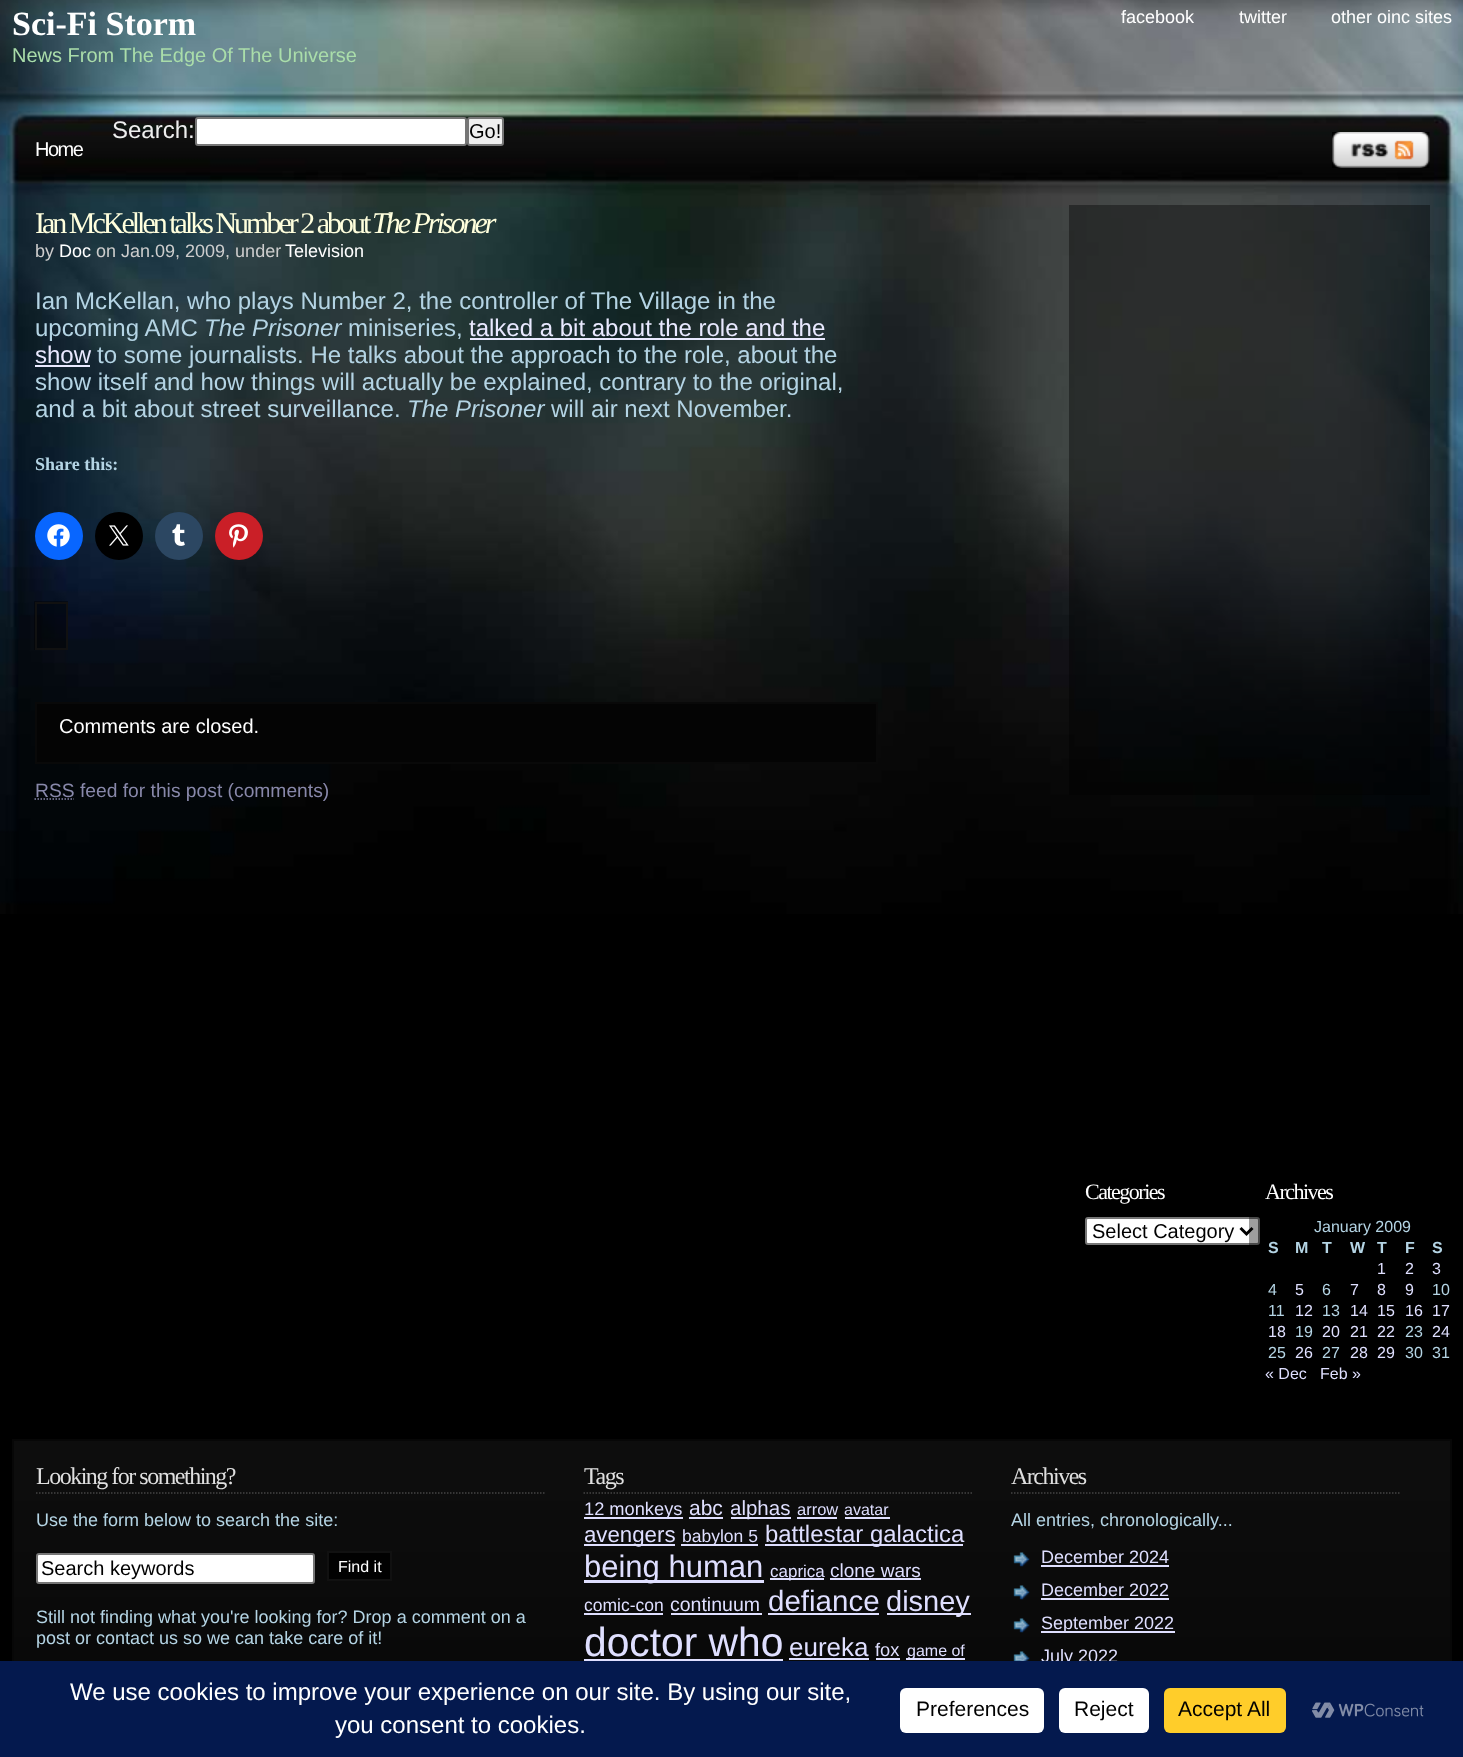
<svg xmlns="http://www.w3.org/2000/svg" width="1463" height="1757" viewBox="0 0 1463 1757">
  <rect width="100%" height="100%" fill="#000"/>
  <image x="0" y="0" width="1463" height="914" href="img/1.png"/>
  <rect x="196" y="118" width="270" height="27" rx="2" fill="#fff" stroke="#767676" stroke-width="2"/>
  <rect x="468" y="118" width="35" height="27" rx="2" fill="#efefef" stroke="#767676" stroke-width="2"/>
  <image x="1332" y="132" width="98" height="36" href="img/2.png"/>
  <path d="M470 338h355v2H470z" fill="#e9e9ff"/>
  <path d="M35 365h55v2H35z" fill="#e9e9ff"/>
  <circle cx="59" cy="536" r="24" fill="#0866ff"/>
  <image x="47" y="524" width="23" height="23" href="img/3.png"/>
  <circle cx="119" cy="536" r="24" fill="#000"/>
  <image x="109" y="525" width="20" height="21" href="img/4.png"/>
  <circle cx="179" cy="536" r="24" fill="#2c4762"/>
  <image x="172" y="524" width="13" height="22" href="img/5.png"/>
  <circle cx="239" cy="536" r="24" fill="#ca1f27"/>
  <image x="229" y="524" width="19" height="24" href="img/6.png"/>
  <path d="M34 601h34v49H34z" fill="#00000061"/>
  <path d="M36 603h31v46H36z" fill="none" stroke="#111" stroke-width="2"/>
  <path d="M36 703h841v60H36z" fill="#040404" stroke="#090909" stroke-width="2"/>
  <path d="M34.5 799H74" fill="none" stroke="#88a" stroke-width="1.5" stroke-dasharray="1.5 1.5"/>
  <path d="M1069 205h361v590H1069z" fill="#00000061"/>
  <rect x="1086" y="1218" width="173" height="26" rx="2" fill="#fff" stroke="#767676" stroke-width="2"/>
  <path d="M1240.5 1228L1246.5 1234L1252.5 1228" fill="none" stroke="#000" stroke-width="3"/>
  <path d="M1249 1217h11v28H1249z" fill="#00000061"/>
  <image x="14" y="1441" width="1436" height="220" href="img/7.png"/>
  <path d="M13 1440h1438v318H13z" fill="none" stroke="#070707" stroke-width="2"/>
  <path d="M36 1493H546" fill="none" stroke="#444" stroke-width="1.5" stroke-dasharray="1.5 1.5"/>
  <rect x="37" y="1554" width="277" height="29" rx="2" fill="#fff" stroke="#767676" stroke-width="2"/>
  <path d="M328 1552h63v28H328z" fill="#010101" stroke="#111" stroke-width="2"/>
  <path d="M583.5 1493H973.5" fill="none" stroke="#444" stroke-width="1.5" stroke-dasharray="1.5 1.5"/>
  <path d="M584 1517h99v2H584z" fill="#dfdfff"/>
  <path d="M689 1517h34v2H689z" fill="#dfdfff"/>
  <path d="M731 1517h60v2H731z" fill="#dfdfff"/>
  <path d="M797 1517h40v2H797z" fill="#dfdfff"/>
  <path d="M845 1517h45v2H845z" fill="#dfdfff"/>
  <path d="M584 1544h91v2H584z" fill="#dfdfff"/>
  <path d="M681 1544h77v2H681z" fill="#dfdfff"/>
  <path d="M765 1544h198v2H765z" fill="#dfdfff"/>
  <path d="M584 1580h180v3H584z" fill="#dfdfff"/>
  <path d="M770 1578h54v2H770z" fill="#dfdfff"/>
  <path d="M830 1578h91v2H830z" fill="#dfdfff"/>
  <path d="M584 1613h79v2H584z" fill="#dfdfff"/>
  <path d="M671 1613h91v2H671z" fill="#dfdfff"/>
  <path d="M768 1613h111v2H768z" fill="#dfdfff"/>
  <path d="M887 1613h84v2H887z" fill="#dfdfff"/>
  <path d="M584 1659h199v2H584z" fill="#dfdfff"/>
  <path d="M789 1658h80v2H789z" fill="#dfdfff"/>
  <path d="M876 1658h24v2H876z" fill="#dfdfff"/>
  <path d="M906 1658h59v2H906z" fill="#dfdfff"/>
  <path d="M1011 1493H1401" fill="none" stroke="#444" stroke-width="1.5" stroke-dasharray="1.5 1.5"/>
  <image x="1013" y="1552" width="17" height="15" href="img/8.png"/>
  <path d="M1041 1565h128v2H1041z" fill="#dfdfff"/>
  <image x="1013" y="1585" width="17" height="15" href="img/9.png"/>
  <path d="M1041 1598h128v2H1041z" fill="#dfdfff"/>
  <image x="1013" y="1618" width="17" height="15" href="img/10.png"/>
  <path d="M1041 1631h134v2H1041z" fill="#dfdfff"/>
  <image x="1013" y="1651" width="17" height="10" href="img/11.png"/>
  <text x="12" y="35" font-family="Liberation Serif" font-size="34" font-weight="bold" fill="#fff">Sci-Fi Storm</text>
  <text x="12" y="62" font-family="Liberation Sans" font-size="20" fill="#ada">News From The Edge Of The Universe</text>
  <g font-family="Liberation Sans" font-size="18" fill="#fff">
    <text x="1121" y="23">facebook</text>
    <text x="1239" y="23">twitter</text>
    <text x="1331" y="23">other oinc sites</text>
  </g>
  <text x="112" y="138" font-family="Liberation Sans" font-size="24" fill="#eee">Search:</text>
  <text x="469" y="138" font-family="Liberation Sans" font-size="20" fill="#000">Go!</text>
  <text x="35" y="156" font-family="Liberation Sans" font-size="20" letter-spacing="-1.5" fill="#fff">Home</text>
  <text x="35" y="233" font-family="Liberation Serif" font-size="30" letter-spacing="-3" fill="#ffd">Ian McKellen talks Number 2 about</text>
  <text x="372" y="233" font-family="Liberation Serif" font-size="30" font-style="italic" letter-spacing="-3" fill="#ffd">The Prisoner</text>
  <text x="35" y="257" font-family="Liberation Sans" font-size="18" fill="#cdcdcd">by</text>
  <text x="59" y="257" font-family="Liberation Sans" font-size="18" fill="#fff">Doc</text>
  <text x="96" y="257" font-family="Liberation Sans" font-size="18" fill="#cdcdcd">on Jan.09, 2009, under</text>
  <text x="285" y="257" font-family="Liberation Sans" font-size="18" fill="#fff">Television</text>
  <g font-family="Liberation Sans" font-size="24" fill="#b4d4e4">
    <text x="35" y="309">Ian McKellan, who plays Number 2, the controller of The Village in the</text>
    <text x="35" y="336">upcoming AMC</text>
  </g>
  <text x="204" y="336" font-family="Liberation Sans" font-size="24" font-style="italic" fill="#b4d4e4">The Prisoner</text>
  <text x="348" y="336" font-family="Liberation Sans" font-size="24" fill="#b4d4e4">miniseries,</text>
  <g font-family="Liberation Sans" font-size="24" fill="#e9e9ff">
    <text x="469" y="336">talked a bit about the role and the</text>
    <text x="35" y="363">show</text>
  </g>
  <g font-family="Liberation Sans" font-size="24" fill="#b4d4e4">
    <text x="97" y="363">to some journalists. He talks about the approach to the role, about the</text>
    <text x="35" y="390">show itself and how things will actually be explained, contrary to the original,</text>
    <text x="35" y="417">and a bit about street surveillance.</text>
  </g>
  <text x="407" y="417" font-family="Liberation Sans" font-size="24" font-style="italic" fill="#b4d4e4">The Prisoner</text>
  <text x="551" y="417" font-family="Liberation Sans" font-size="24" fill="#b4d4e4">will air next November.</text>
  <text x="35" y="470" font-family="Liberation Serif" font-size="18" font-weight="bold" fill="#b4d4e4">Share this:</text>
  <text x="59" y="733" font-family="Liberation Sans" font-size="20" fill="#fff">Comments are closed.</text>
  <text x="35" y="797" font-family="Liberation Sans" font-size="19.25" fill="#88a">RSS feed for this post (comments)</text>
  <text x="1085" y="1199" font-family="Liberation Serif" font-size="22" letter-spacing="-1.5" fill="#fff">Categories</text>
  <text x="1092" y="1238" font-family="Liberation Sans" font-size="20" fill="#000">Select Category</text>
  <text x="1265" y="1199" font-family="Liberation Serif" font-size="22" letter-spacing="-1.5" fill="#fff">Archives</text>
  <text x="1314" y="1232" font-family="Liberation Sans" font-size="16" fill="#b4d4e4">January 2009</text>
  <g font-family="Liberation Sans" font-size="16" font-weight="bold" fill="#b4d4e4">
    <text x="1268" y="1253">S</text>
    <text x="1295" y="1253">M</text>
    <text x="1322" y="1253">T</text>
    <text x="1350" y="1253">W</text>
    <text x="1377" y="1253">T</text>
    <text x="1405" y="1253">F</text>
    <text x="1432" y="1253">S</text>
  </g>
  <g font-family="Liberation Sans" font-size="16" fill="#dfdfff">
    <text x="1377" y="1274">1</text>
    <text x="1405" y="1274">2</text>
    <text x="1432" y="1274">3</text>
  </g>
  <text x="1268" y="1295" font-family="Liberation Sans" font-size="16" fill="#b4d4e4">4</text>
  <text x="1295" y="1295" font-family="Liberation Sans" font-size="16" fill="#dfdfff">5</text>
  <text x="1322" y="1295" font-family="Liberation Sans" font-size="16" fill="#b4d4e4">6</text>
  <g font-family="Liberation Sans" font-size="16" fill="#dfdfff">
    <text x="1350" y="1295">7</text>
    <text x="1377" y="1295">8</text>
    <text x="1405" y="1295">9</text>
  </g>
  <g font-family="Liberation Sans" font-size="16" fill="#b4d4e4">
    <text x="1432" y="1295">10</text>
    <text x="1268" y="1316">11</text>
  </g>
  <text x="1295" y="1316" font-family="Liberation Sans" font-size="16" fill="#dfdfff">12</text>
  <text x="1322" y="1316" font-family="Liberation Sans" font-size="16" fill="#b4d4e4">13</text>
  <g font-family="Liberation Sans" font-size="16" fill="#dfdfff">
    <text x="1350" y="1316">14</text>
    <text x="1377" y="1316">15</text>
    <text x="1405" y="1316">16</text>
    <text x="1432" y="1316">17</text>
    <text x="1268" y="1337">18</text>
  </g>
  <text x="1295" y="1337" font-family="Liberation Sans" font-size="16" fill="#b4d4e4">19</text>
  <g font-family="Liberation Sans" font-size="16" fill="#dfdfff">
    <text x="1322" y="1337">20</text>
    <text x="1350" y="1337">21</text>
    <text x="1377" y="1337">22</text>
  </g>
  <text x="1405" y="1337" font-family="Liberation Sans" font-size="16" fill="#b4d4e4">23</text>
  <text x="1432" y="1337" font-family="Liberation Sans" font-size="16" fill="#dfdfff">24</text>
  <text x="1268" y="1358" font-family="Liberation Sans" font-size="16" fill="#b4d4e4">25</text>
  <text x="1295" y="1358" font-family="Liberation Sans" font-size="16" fill="#dfdfff">26</text>
  <text x="1322" y="1358" font-family="Liberation Sans" font-size="16" fill="#b4d4e4">27</text>
  <g font-family="Liberation Sans" font-size="16" fill="#dfdfff">
    <text x="1350" y="1358">28</text>
    <text x="1377" y="1358">29</text>
  </g>
  <g font-family="Liberation Sans" font-size="16" fill="#b4d4e4">
    <text x="1405" y="1358">30</text>
    <text x="1432" y="1358">31</text>
  </g>
  <g font-family="Liberation Sans" font-size="16" fill="#dfdfff">
    <text x="1265" y="1379">« Dec</text>
    <text x="1320" y="1379">Feb »</text>
  </g>
  <text x="36" y="1484" font-family="Liberation Serif" font-size="24" letter-spacing="-1.5" fill="#dfdfdf">Looking for something?</text>
  <text x="36" y="1526" font-family="Liberation Sans" font-size="18" fill="#b4d4e4">Use the form below to search the site:</text>
  <text x="41" y="1575" font-family="Liberation Sans" font-size="20" fill="#000">Search keywords</text>
  <text x="338" y="1572" font-family="Liberation Sans" font-size="16" fill="#fff">Find it</text>
  <g font-family="Liberation Sans" font-size="18" fill="#b4d4e4">
    <text x="36" y="1623">Still not finding what you're looking for? Drop a comment on a</text>
    <text x="36" y="1644">post or contact us so we can take care of it!</text>
  </g>
  <text x="584" y="1484" font-family="Liberation Serif" font-size="24" letter-spacing="-1.5" fill="#dfdfdf">Tags</text>
  <text x="584" y="1515" font-family="Liberation Sans" font-size="18.25" fill="#dfdfff">12 monkeys</text>
  <text x="689" y="1515" font-family="Liberation Sans" font-size="21" fill="#dfdfff">abc</text>
  <text x="730" y="1515" font-family="Liberation Sans" font-size="20.5" fill="#dfdfff">alphas</text>
  <text x="797" y="1515" font-family="Liberation Sans" font-size="16.5" fill="#dfdfff">arrow</text>
  <text x="844" y="1515" font-family="Liberation Sans" font-size="16" fill="#dfdfff">avatar</text>
  <text x="584" y="1542" font-family="Liberation Sans" font-size="22.25" fill="#dfdfff">avengers</text>
  <text x="682" y="1542" font-family="Liberation Sans" font-size="17.5" fill="#dfdfff">babylon 5</text>
  <text x="765" y="1542" font-family="Liberation Sans" font-size="23.9" fill="#dfdfff">battlestar galactica</text>
  <text x="584" y="1577" font-family="Liberation Sans" font-size="31" fill="#dfdfff">being human</text>
  <text x="770" y="1577" font-family="Liberation Sans" font-size="17" fill="#dfdfff">caprica</text>
  <text x="830" y="1577" font-family="Liberation Sans" font-size="19" fill="#dfdfff">clone wars</text>
  <text x="584" y="1611" font-family="Liberation Sans" font-size="17.5" fill="#dfdfff">comic-con</text>
  <text x="670" y="1611" font-family="Liberation Sans" font-size="19.5" fill="#dfdfff">continuum</text>
  <text x="768" y="1611" font-family="Liberation Sans" font-size="29.5" fill="#dfdfff">defiance</text>
  <text x="886" y="1611" font-family="Liberation Sans" font-size="29" fill="#dfdfff">disney</text>
  <text x="584" y="1656" font-family="Liberation Sans" font-size="40.75" fill="#dfdfff">doctor who</text>
  <text x="789" y="1656" font-family="Liberation Sans" font-size="26" fill="#dfdfff">eureka</text>
  <text x="875" y="1656" font-family="Liberation Sans" font-size="18.25" fill="#dfdfff">fox</text>
  <text x="907" y="1656" font-family="Liberation Sans" font-size="16" fill="#dfdfff">game of</text>
  <text x="1011" y="1484" font-family="Liberation Serif" font-size="24" letter-spacing="-1.5" fill="#dfdfdf">Archives</text>
  <text x="1011" y="1526" font-family="Liberation Sans" font-size="18" fill="#b4d4e4">All entries, chronologically...</text>
  <g font-family="Liberation Sans" font-size="18" fill="#dfdfff">
    <text x="1041" y="1563">December 2024</text>
    <text x="1041" y="1596">December 2022</text>
    <text x="1041" y="1629">September 2022</text>
    <text x="1041" y="1662">July 2022</text>
  </g>
  <path d="M0 1661h1463v96H0z" fill="#04194e"/>
  <g font-family="Liberation Sans" font-size="24" fill="#fff">
    <text x="70" y="1700">We use cookies to improve your experience on our site. By using our site,</text>
    <text x="335" y="1733">you consent to cookies.</text>
  </g>
  <rect x="900" y="1688" width="144" height="45" rx="6" fill="#fff"/>
  <text x="916" y="1716" font-family="Liberation Sans" font-size="21" fill="#000">Preferences</text>
  <rect x="1059" y="1688" width="90" height="45" rx="6" fill="#fff"/>
  <text x="1074" y="1716" font-family="Liberation Sans" font-size="21" fill="#000">Reject</text>
  <rect x="1164" y="1688" width="122" height="45" rx="6" fill="#ffcd2a"/>
  <text x="1178" y="1716" font-family="Liberation Sans" font-size="21" fill="#000">Accept All</text>
  <image x="1312" y="1702" width="112" height="16" href="img/12.png"/>
</svg>
